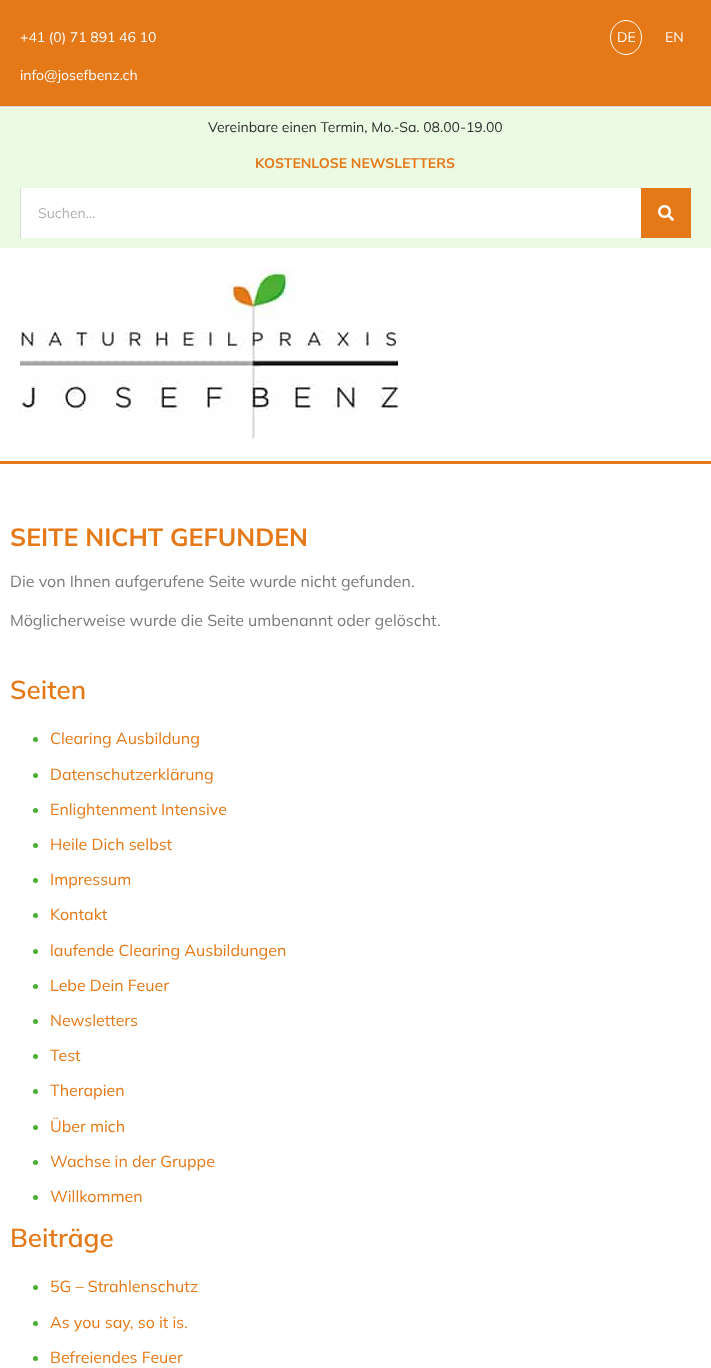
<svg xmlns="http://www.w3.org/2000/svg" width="711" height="1368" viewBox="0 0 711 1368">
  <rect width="100%" height="100%" fill="#fff"/>
  <path d="M0 0h711v106H0z" fill="#e57817"/>
  <path d="M0 106h711v1H0z" fill="#dad9d9"/>
  <path d="M626 20.5C634.5 20.5 641.5 28 641.5 37.5C641.5 47 634.5 54.5 626 54.5C617.5 54.5 610.5 47 610.5 37.5C610.5 28 617.5 20.5 626 20.5Z" fill="none" stroke="#fff"/>
  <path d="M0 107h711v141H0z" fill="#ebfae3"/>
  <path d="M20 188h1v50H20z" fill="#dad9d9"/>
  <path d="M21 188h620v50H21z" fill="#fff"/>
  <path d="M641 188h50v50H641z" fill="#e57817"/>
  <image x="658" y="205" width="16" height="16" href="img/1.png"/>
  <path d="M0 461h711v3H0z" fill="#e57817"/>
  <image x="20" y="268" width="378" height="172" href="img/2.png"/>
  <circle cx="35.5" cy="739.5" r="2.5" fill="#4baf33"/>
  <circle cx="35.5" cy="775.5" r="2.5" fill="#4baf33"/>
  <circle cx="35.5" cy="810.5" r="2.5" fill="#4baf33"/>
  <circle cx="35.5" cy="845.5" r="2.5" fill="#4baf33"/>
  <circle cx="35.5" cy="880.5" r="2.5" fill="#4baf33"/>
  <circle cx="35.5" cy="915.5" r="2.5" fill="#4baf33"/>
  <circle cx="35.5" cy="951.5" r="2.5" fill="#4baf33"/>
  <circle cx="35.5" cy="986.5" r="2.5" fill="#4baf33"/>
  <circle cx="35.5" cy="1021.5" r="2.5" fill="#4baf33"/>
  <circle cx="35.5" cy="1056.5" r="2.5" fill="#4baf33"/>
  <circle cx="35.5" cy="1091.5" r="2.5" fill="#4baf33"/>
  <circle cx="35.5" cy="1127.5" r="2.5" fill="#4baf33"/>
  <circle cx="35.5" cy="1162.5" r="2.5" fill="#4baf33"/>
  <circle cx="35.5" cy="1197.5" r="2.5" fill="#4baf33"/>
  <circle cx="35.5" cy="1287.5" r="2.5" fill="#4baf33"/>
  <circle cx="35.5" cy="1323.5" r="2.5" fill="#4baf33"/>
  <circle cx="35.5" cy="1358.5" r="2.5" fill="#4baf33"/>
  <g font-family="Mulish" font-size="14" fill="#fff">
    <text x="20" y="42">+41 (0) 71 891 46 10</text>
    <text x="617" y="42">DE</text>
    <text x="665" y="42">EN</text>
    <text x="20" y="80">info@josefbenz.ch</text>
  </g>
  <text x="208" y="132" font-family="Mulish" font-size="14" fill="#2d2d2d">Vereinbare einen Termin, Mo.-Sa. 08.00-19.00</text>
  <text x="255" y="168" font-family="Mulish" font-size="14" font-weight="bold" fill="#e57817">KOSTENLOSE NEWSLETTERS</text>
  <text x="38" y="218" font-family="Mulish" font-size="14" fill="#afafaf">Suchen...</text>
  <text x="10" y="546" font-family="Mulish" font-size="25" font-weight="bold" fill="#e57817">SEITE NICHT GEFUNDEN</text>
  <g font-family="Mulish" font-size="16" fill="#7a7a7a">
    <text x="10" y="587">Die von Ihnen aufgerufene Seite wurde nicht gefunden.</text>
    <text x="10" y="626">Möglicherweise wurde die Seite umbenannt oder gelöscht.</text>
  </g>
  <text x="10" y="699" font-family="Mulish" font-size="26" font-weight="600" fill="#e57817">Seiten</text>
  <g font-family="Mulish" font-size="16" fill="#e57817">
    <text x="50" y="744">Clearing Ausbildung</text>
    <text x="50" y="780">Datenschutzerklärung</text>
    <text x="50" y="815">Enlightenment Intensive</text>
    <text x="50" y="850">Heile Dich selbst</text>
    <text x="50" y="885">Impressum</text>
    <text x="50" y="920">Kontakt</text>
    <text x="50" y="956">laufende Clearing Ausbildungen</text>
    <text x="50" y="991">Lebe Dein Feuer</text>
    <text x="50" y="1026">Newsletters</text>
    <text x="50" y="1061">Test</text>
    <text x="50" y="1096">Therapien</text>
    <text x="50" y="1132">Über mich</text>
    <text x="50" y="1167">Wachse in der Gruppe</text>
    <text x="50" y="1202">Willkommen</text>
  </g>
  <text x="10" y="1247" font-family="Mulish" font-size="26" font-weight="600" fill="#e57817">Beiträge</text>
  <g font-family="Mulish" font-size="16" fill="#e57817">
    <text x="50" y="1292">5G – Strahlenschutz</text>
    <text x="50" y="1328">As you say, so it is.</text>
    <text x="50" y="1363">Befreiendes Feuer</text>
  </g>
</svg>
